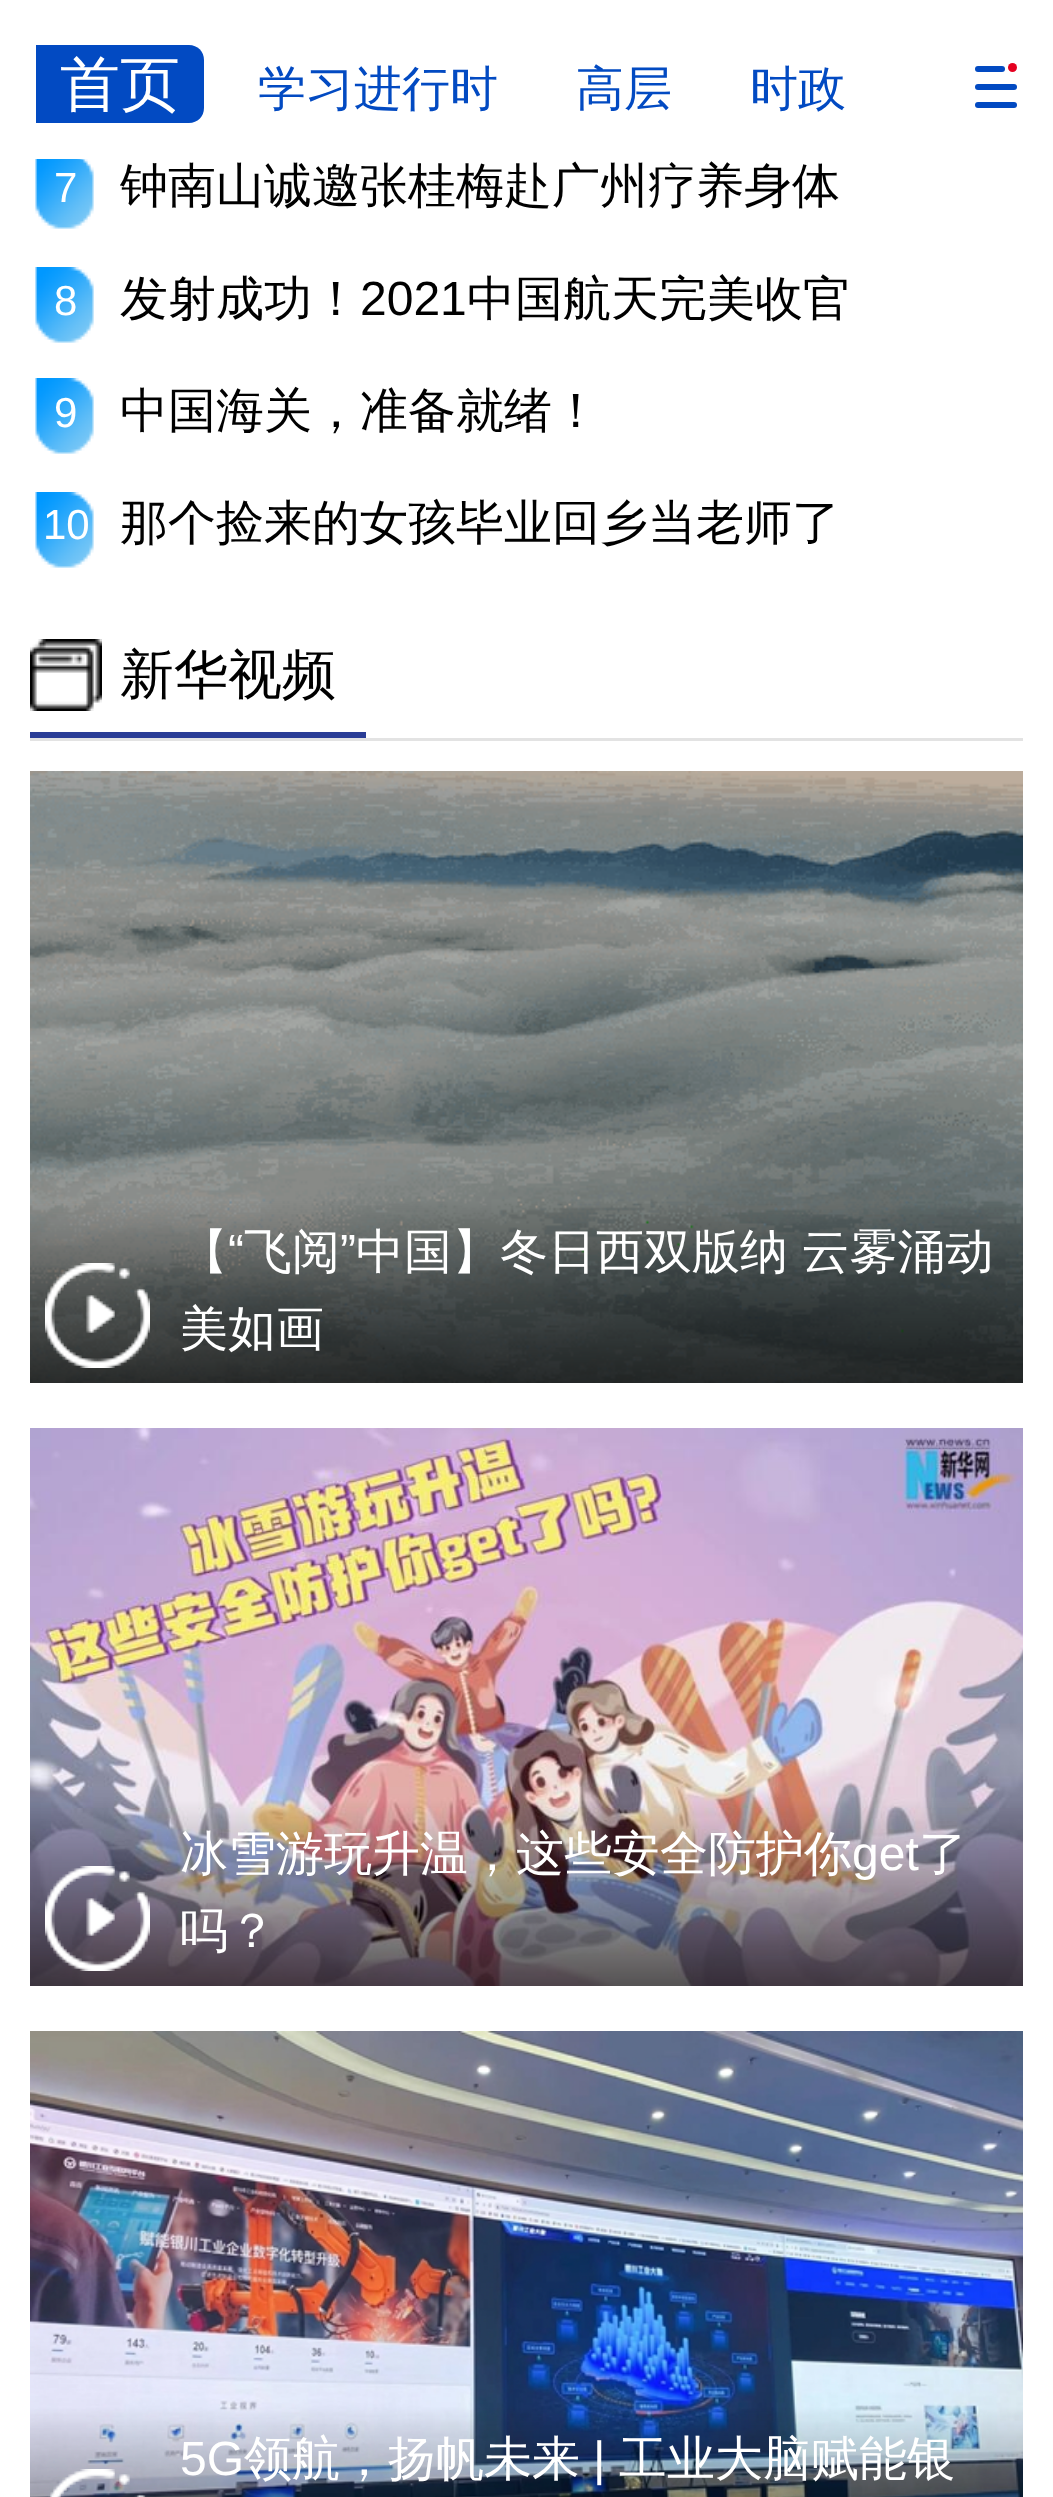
<svg xmlns="http://www.w3.org/2000/svg" width="1053" height="2497" viewBox="0 0 1053 2497">
  <rect width="100%" height="100%" fill="#fff"/>
  <path d="M36 45H189C197.5 45 204 51.5 204 60V108C204 116.5 197.5 123 189 123H36Z" fill="#024ac2"/>
  <rect x="975" y="66" width="30" height="6" rx="3" fill="#024ac2"/>
  <circle cx="1012.5" cy="67.5" r="4.5" fill="#e50020"/>
  <rect x="975" y="84" width="42" height="6" rx="3" fill="#024ac2"/>
  <rect x="975" y="102" width="42" height="6" rx="3" fill="#024ac2"/>
  <image x="35" y="159" width="59" height="70" href="img/1.png"/>
  <image x="35" y="267" width="59" height="76" href="img/2.png"/>
  <image x="35" y="378" width="59" height="76" href="img/2.png"/>
  <image x="35" y="492" width="59" height="76" href="img/2.png"/>
  <path d="M30 738h993v3H30z" fill="#e3e3e3"/>
  <image x="30" y="639" width="72" height="72" href="img/3.png"/>
  <path d="M30 732h336v6H30z" fill="#2a3d96"/>
  <image x="30" y="771" width="993" height="612" href="img/4.png"/>
  <image x="45" y="1263" width="105" height="105" href="img/6.png"/>
  <image x="45" y="1263" width="105" height="105" href="img/5.png"/>
  <image x="30" y="1428" width="993" height="558" href="img/7.png"/>
  <image x="45" y="1866" width="105" height="105" href="img/9.png"/>
  <image x="45" y="1866" width="105" height="105" href="img/8.png"/>
  <image x="30" y="2031" width="993" height="466" href="img/10.png"/>
  <image x="48" y="2469" width="98" height="28" href="img/12.png"/>
  <image x="48" y="2469" width="98" height="28" href="img/11.png"/>
  <text x="60" y="105" font-family="WenQuanYi Zen Hei" font-size="60" font-weight="500" fill="#fff">首页</text>
  <g font-family="WenQuanYi Zen Hei" font-size="48" font-weight="500" fill="#024ac2">
    <text x="258" y="105">学习进行时</text>
    <text x="576" y="105">高层</text>
    <text x="750" y="105">时政</text>
  </g>
  <text x="54" y="202" font-family="Liberation Sans" font-size="42" fill="#fff">7</text>
  <text x="120" y="202" font-family="WenQuanYi Zen Hei" font-size="48" font-weight="500" fill="#000">钟南山诚邀张桂梅赴广州疗养身体</text>
  <text x="54" y="315" font-family="Liberation Sans" font-size="42" fill="#fff">8</text>
  <text x="120" y="315" font-family="WenQuanYi Zen Hei" font-size="48" font-weight="500" fill="#000">发射成功！</text>
  <text x="360" y="315" font-family="Liberation Sans" font-size="48" fill="#000">2021</text>
  <text x="467" y="315" font-family="WenQuanYi Zen Hei" font-size="48" font-weight="500" fill="#000">中国航天完美收官</text>
  <text x="54" y="427" font-family="Liberation Sans" font-size="42" fill="#fff">9</text>
  <text x="120" y="427" font-family="WenQuanYi Zen Hei" font-size="48" font-weight="500" fill="#000">中国海关，准备就绪！</text>
  <text x="43" y="539" font-family="Liberation Sans" font-size="42" fill="#fff">10</text>
  <text x="120" y="539" font-family="WenQuanYi Zen Hei" font-size="48" font-weight="500" fill="#000">那个捡来的女孩毕业回乡当老师了</text>
  <text x="120" y="693" font-family="WenQuanYi Zen Hei" font-size="54" font-weight="500" fill="#000">新华视频</text>
  <text x="180" y="1268" font-family="WenQuanYi Zen Hei" font-size="48" font-weight="500" fill="#fff">【</text>
  <text x="228" y="1268" font-family="Liberation Sans" font-size="48" fill="#fff">“</text>
  <text x="244" y="1268" font-family="WenQuanYi Zen Hei" font-size="48" font-weight="500" fill="#fff">飞阅</text>
  <text x="340" y="1268" font-family="Liberation Sans" font-size="48" fill="#fff">”</text>
  <g font-family="WenQuanYi Zen Hei" font-size="48" font-weight="500" fill="#fff">
    <text x="356" y="1268" word-spacing="-1">中国】冬日西双版纳 云雾涌动</text>
    <text x="180" y="1345">美如画</text>
    <text x="180" y="1870">冰雪游玩升温，这些安全防护你</text>
  </g>
  <text x="852" y="1870" font-family="Liberation Sans" font-size="48" fill="#fff">get</text>
  <g font-family="WenQuanYi Zen Hei" font-size="48" font-weight="500" fill="#fff">
    <text x="919" y="1870">了</text>
    <text x="180" y="1947">吗？</text>
  </g>
  <text x="180" y="2475" font-family="Liberation Sans" font-size="48" fill="#fff">5G</text>
  <text x="244" y="2475" font-family="WenQuanYi Zen Hei" font-size="48" font-weight="500" fill="#fff">领航，扬帆未来</text>
  <text x="593" y="2475" font-family="Liberation Sans" font-size="48" fill="#fff">|</text>
  <text x="619" y="2475" font-family="WenQuanYi Zen Hei" font-size="48" font-weight="500" fill="#fff">工业大脑赋能银</text>
</svg>
